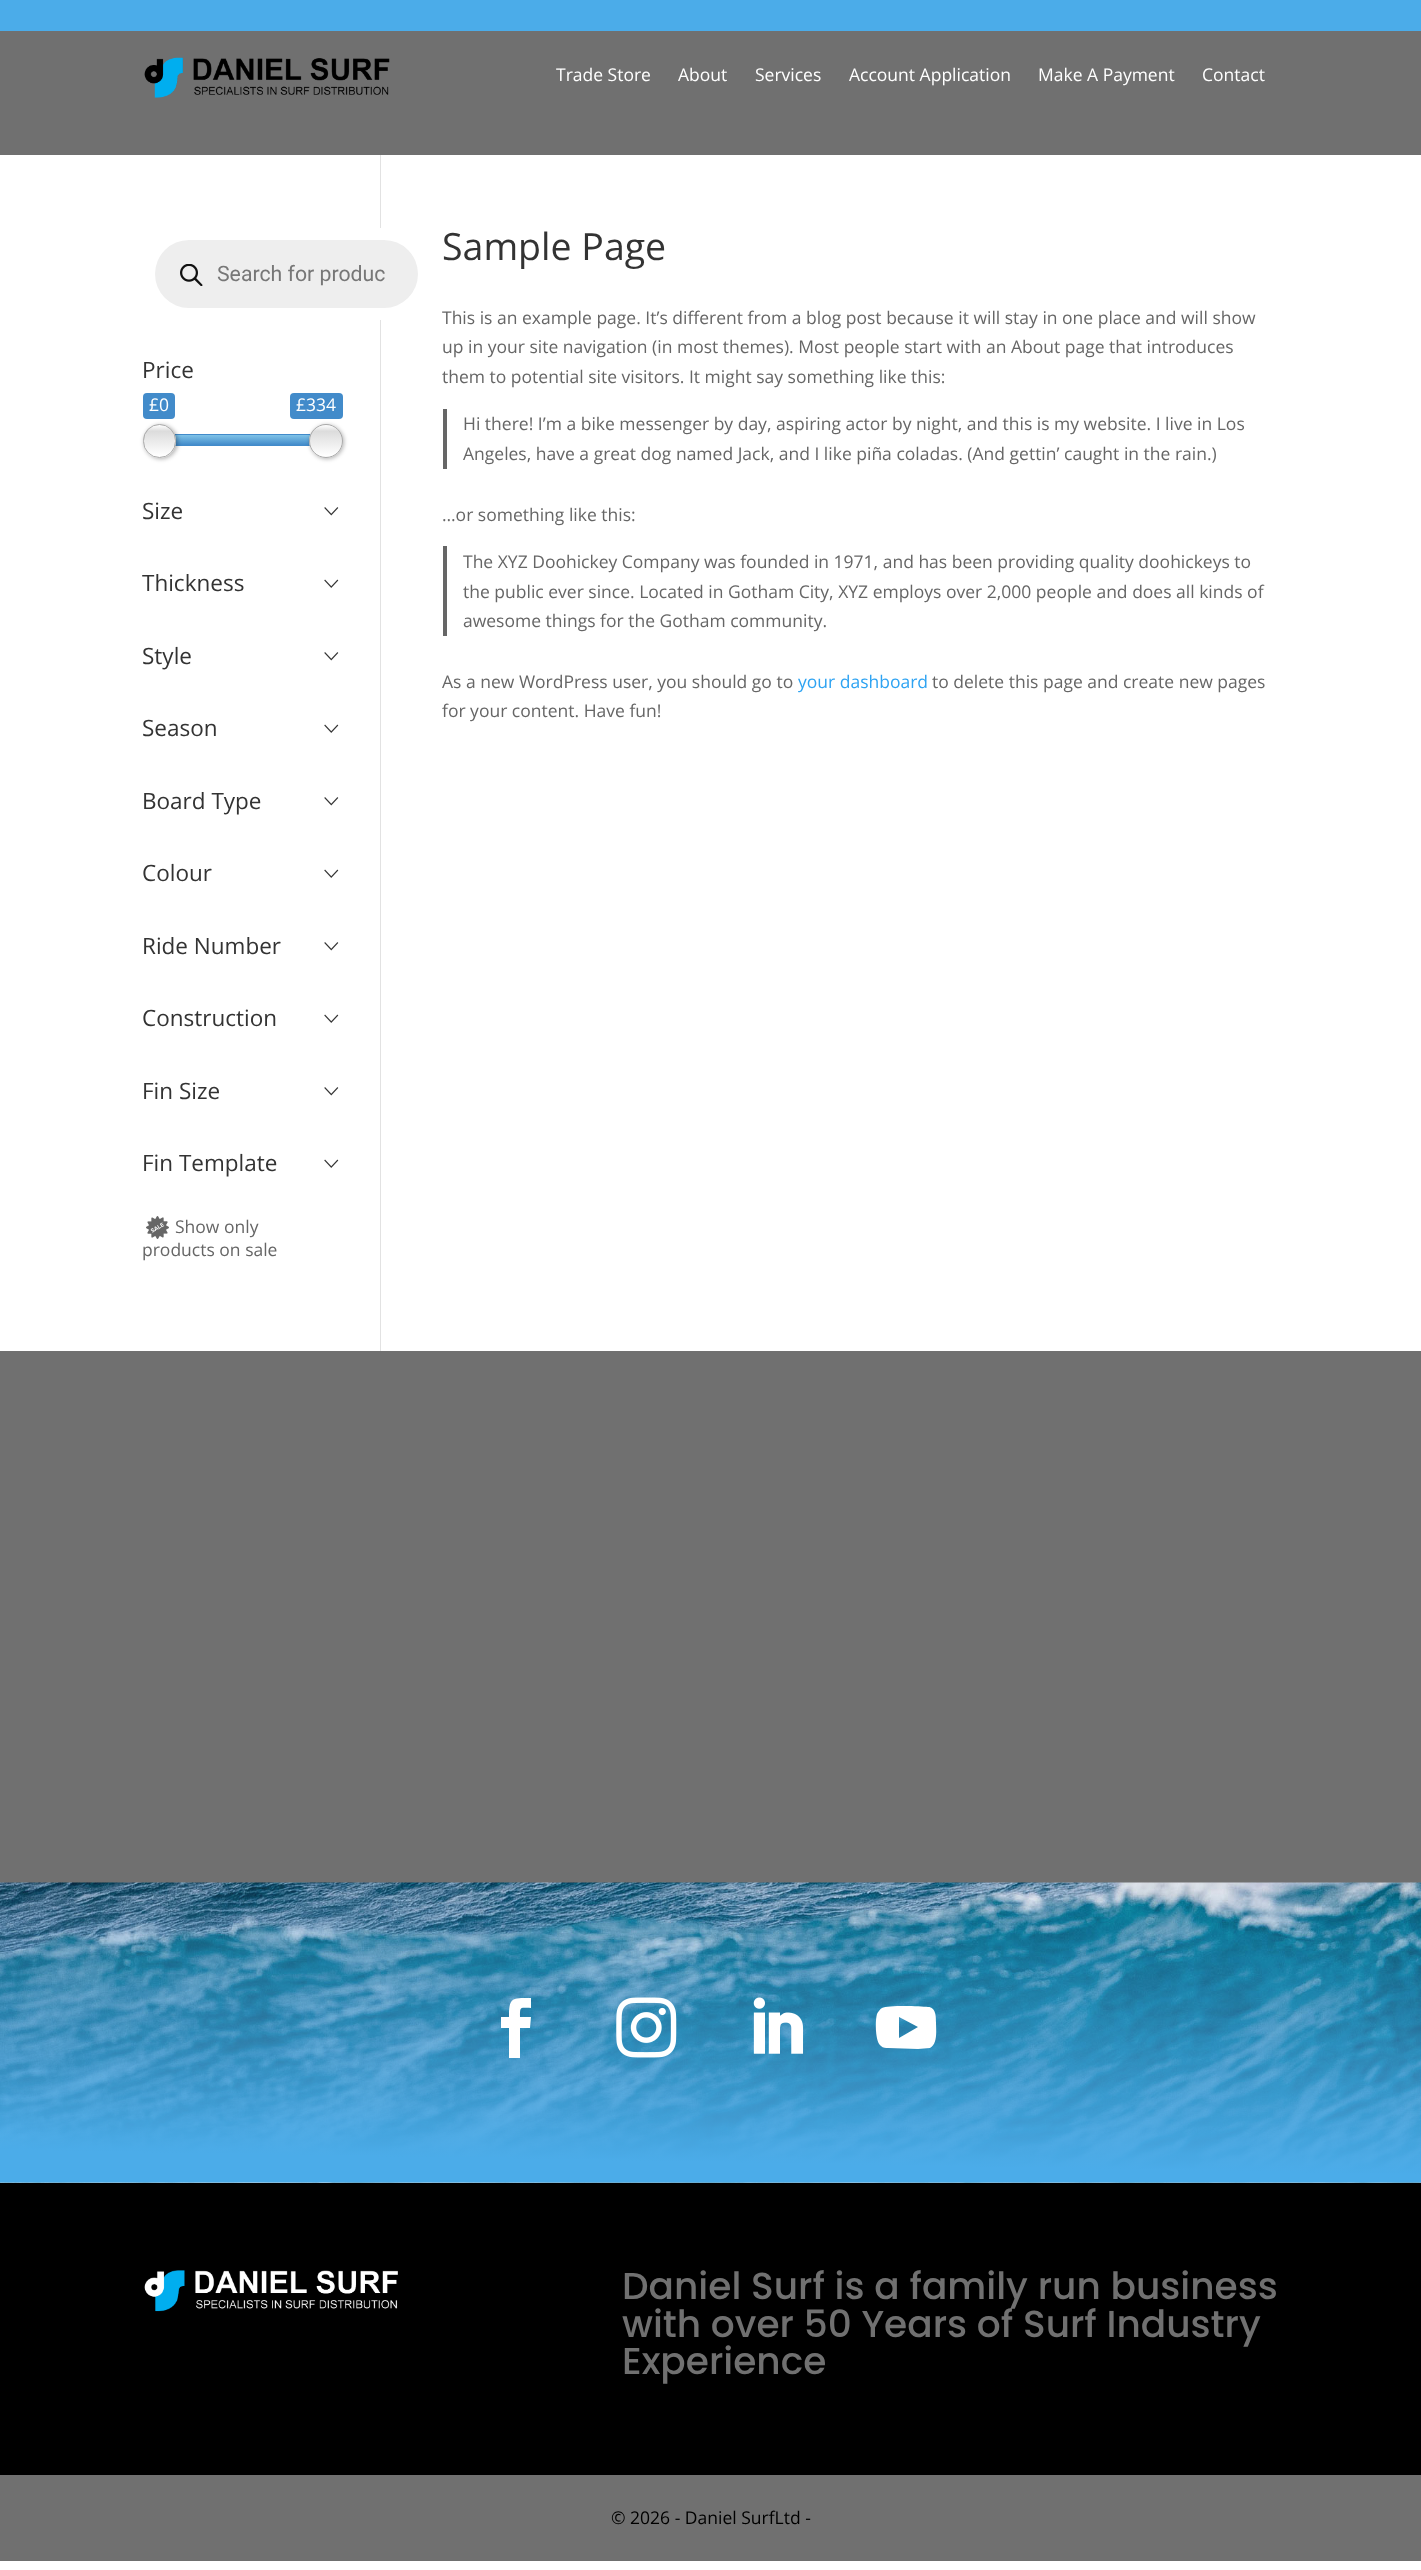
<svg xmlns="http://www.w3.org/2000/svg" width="1421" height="2570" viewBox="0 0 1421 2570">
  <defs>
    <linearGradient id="g1" gradientUnits="userSpaceOnUse" x1="242" y1="445" x2="242" y2="435"><stop offset="0" stop-color="#428bca"/><stop offset="1" stop-color="#7fc3e8"/></linearGradient>
    <clipPath id="clip1"><rect x="143" y="424" width="33" height="34" rx="16.5"/></clipPath>
    <linearGradient id="g2" gradientUnits="userSpaceOnUse" x1="159" y1="425" x2="159" y2="456"><stop offset="0" stop-color="#fff"/><stop offset="0.2" stop-color="#dcdcdc"/><stop offset="1" stop-color="#fff"/></linearGradient>
    <linearGradient id="g3" gradientUnits="userSpaceOnUse" x1="159" y1="456" x2="159" y2="488"><stop offset="0" stop-color="#fff"/><stop offset="0.2" stop-color="#dcdcdc"/><stop offset="1" stop-color="#fff"/></linearGradient>
    <clipPath id="clip2"><rect x="309" y="424" width="34" height="34" rx="17"/></clipPath>
    <linearGradient id="g4" gradientUnits="userSpaceOnUse" x1="326" y1="425" x2="326" y2="456"><stop offset="0" stop-color="#fff"/><stop offset="0.2" stop-color="#dcdcdc"/><stop offset="1" stop-color="#fff"/></linearGradient>
    <linearGradient id="g5" gradientUnits="userSpaceOnUse" x1="326" y1="456" x2="326" y2="488"><stop offset="0" stop-color="#fff"/><stop offset="0.2" stop-color="#dcdcdc"/><stop offset="1" stop-color="#fff"/></linearGradient>
  </defs>
  <rect width="100%" height="100%" fill="#fff"/>
  <path d="M0 0h1421v31H0z" fill="#4bace9"/>
  <path d="M0 31h1421v124H0z" fill="#707070"/>
  <image x="144" y="57" width="246" height="41" href="img/1.png"/>
  <path d="M380 155h1v1196H380z" fill="#e2e2e2"/>
  <rect x="143" y="228" width="287" height="92" rx="13" fill="#fff"/>
  <rect x="155" y="240" width="263" height="68" rx="34" fill="#eee"/>
  <image x="180" y="264" width="23" height="22" href="img/2.png"/>
  <rect x="143" y="393" width="32" height="26" rx="4" fill="#428bca"/>
  <rect x="290" y="393" width="53" height="26" rx="4" fill="#428bca"/>
  <rect x="143.5" y="434.5" width="199" height="11" rx="5.5" fill="none" stroke="#ccc"/>
  <path d="M175 435h136v10H175z" fill="url(#g1)"/>
  <path d="M174 434h137v1H174z" fill="#428bca"/>
  <path d="M175 445h135v1H175z" fill="#428bca"/>
  <rect x="144" y="425" width="34" height="34" rx="17" fill="#0000004d" filter="blur(2px)"/>
  <g clip-path="url(#clip1)">
    <path d="M143 425h33v31H143z" fill="url(#g2)"/>
    <path d="M143 456h33v2H143z" fill="url(#g3)"/>
  </g>
  <rect x="143.5" y="424.5" width="32" height="33" rx="16" fill="none" stroke="#aaa"/>
  <rect x="310" y="425" width="34" height="34" rx="17" fill="#0000004d" filter="blur(2px)"/>
  <g clip-path="url(#clip2)">
    <path d="M309 425h34v31H309z" fill="url(#g4)"/>
    <path d="M318 456h16v2H318z" fill="url(#g5)"/>
  </g>
  <circle cx="326" cy="441" r="16.5" fill="none" stroke="#aaa"/>
  <image x="324" y="507" width="15" height="9" href="img/3.png"/>
  <image x="324" y="579" width="15" height="9" href="img/4.png"/>
  <image x="324" y="652" width="15" height="9" href="img/3.png"/>
  <image x="324" y="724" width="15" height="9" href="img/4.png"/>
  <image x="324" y="797" width="15" height="9" href="img/3.png"/>
  <image x="324" y="869" width="15" height="9" href="img/4.png"/>
  <image x="324" y="942" width="15" height="9" href="img/3.png"/>
  <image x="324" y="1014" width="15" height="9" href="img/4.png"/>
  <image x="324" y="1087" width="15" height="9" href="img/3.png"/>
  <image x="324" y="1159" width="15" height="9" href="img/4.png"/>
  <image x="146" y="1216" width="23" height="23" href="img/5.png"/>
  <path d="M443 409h4v60H443z" fill="#666"/>
  <path d="M443 546h4v90H443z" fill="#666"/>
  <path d="M0 1351h1421v532H0z" fill="#707070"/>
  <image x="0" y="1882" width="1421" height="301" href="img/6.png"/>
  <path d="M509 2058H520V2028H530L531 2017H520C520 2006 520 2008 531 2008V1998C512 1998 509 1997 509 2017H501V2028H509Z" fill="#fff"/>
  <image x="616" y="1997" width="61" height="61" href="img/7.png"/>
  <image x="753" y="1997" width="51" height="57" href="img/8.png"/>
  <path d="M928 2007C920 2006 888 2005 882 2008C880 2009 878 2012 877 2014C875 2021 875 2042 881 2046C883 2048 886 2048 888 2048L918 2049L930 2048C938 2044 936 2029 936 2022C936 2017 936 2007 928 2007ZM899 2038V2017L918 2027Z" fill="#fff"/>
  <path d="M0 2183h1421v292H0z" fill="#000"/>
  <image x="144" y="2270" width="254" height="42" href="img/9.png"/>
  <path d="M0 2475h1421v86H0z" fill="#707070"/>
  <g font-family="Open Sans" font-size="17.5" fill="#fff">
    <text x="556" y="81">Trade Store</text>
    <text x="678" y="81">About</text>
    <text x="755" y="81">Services</text>
    <text x="849" y="81">Account Application</text>
    <text x="1038" y="81">Make A Payment</text>
    <text x="1202" y="81">Contact</text>
  </g>
  <text x="217" y="281" font-family="Roboto" font-size="21.25" fill="#777">Search for produc</text>
  <text x="142" y="378" font-family="Open Sans" font-size="22.5" fill="#333">Price</text>
  <g font-family="Open Sans" font-size="17.5" fill="#fff">
    <text x="149" y="411">£0</text>
    <text x="296" y="411">£334</text>
  </g>
  <g font-family="Open Sans" font-size="22.5" fill="#333">
    <text x="142" y="519">Size</text>
    <text x="142" y="591">Thickness</text>
    <text x="142" y="664">Style</text>
    <text x="142" y="736">Season</text>
    <text x="142" y="809">Board Type</text>
    <text x="142" y="881">Colour</text>
    <text x="142" y="954">Ride Number</text>
    <text x="142" y="1026">Construction</text>
    <text x="142" y="1099">Fin Size</text>
    <text x="142" y="1171">Fin Template</text>
  </g>
  <g font-family="Open Sans" font-size="17.5" fill="#666">
    <text x="175" y="1233">Show only</text>
    <text x="142" y="1256">products on sale</text>
  </g>
  <text x="442" y="260" font-family="Open Sans" font-size="37.5" fill="#333">Sample Page</text>
  <g font-family="Open Sans" font-size="17.5" fill="#666">
    <text x="442" y="324">This is an example page. It’s different from a blog post because it will stay in one place and will show</text>
    <text x="442" y="353">up in your site navigation (in most themes). Most people start with an About page that introduces</text>
    <text x="442" y="383">them to potential site visitors. It might say something like this:</text>
    <text x="463" y="430">Hi there! I’m a bike messenger by day, aspiring actor by night, and this is my website. I live in Los</text>
    <text x="463" y="460">Angeles, have a great dog named Jack, and I like piña coladas. (And gettin’ caught in the rain.)</text>
    <text x="442" y="521">…or something like this:</text>
    <text x="463" y="568">The XYZ Doohickey Company was founded in 1971, and has been providing quality doohickeys to</text>
    <text x="463" y="598">the public ever since. Located in Gotham City, XYZ employs over 2,000 people and does all kinds of</text>
    <text x="463" y="627">awesome things for the Gotham community.</text>
    <text x="442" y="688">As a new WordPress user, you should go to</text>
  </g>
  <text x="798" y="688" font-family="Open Sans" font-size="17.5" fill="#2ea3f2">your dashboard</text>
  <g font-family="Open Sans" font-size="17.5" fill="#666">
    <text x="932" y="688">to delete this page and create new pages</text>
    <text x="442" y="717">for your content. Have fun!</text>
  </g>
  <g font-family="Poppins" font-size="37.5" font-weight="500" fill="#707070">
    <text x="622" y="2299">Daniel Surf is a family run business</text>
    <text x="622" y="2337">with over 50 Years of Surf Industry</text>
    <text x="622" y="2374">Experience</text>
  </g>
  <text x="611" y="2524" font-family="Open Sans" font-size="17.5" fill="#000">© 2026 - Daniel SurfLtd -</text>
</svg>
